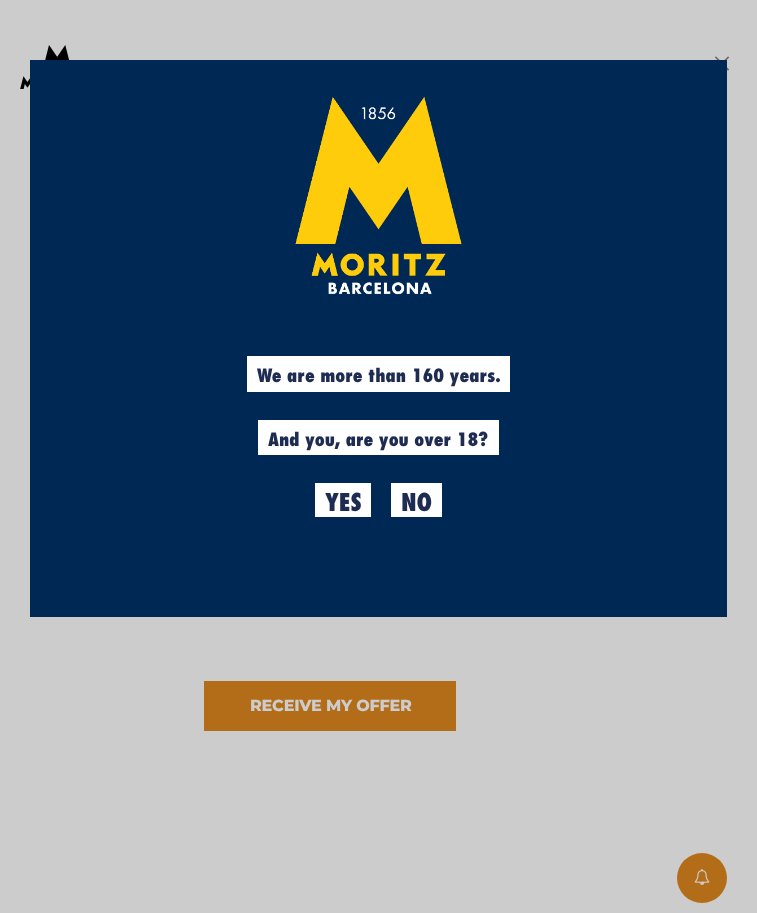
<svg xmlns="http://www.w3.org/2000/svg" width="757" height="913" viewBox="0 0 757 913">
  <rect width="100%" height="100%" fill="#ccc"/>
  <image x="20" y="45" width="49" height="44" href="img/2.png"/>
  <image x="714" y="56" width="16" height="15" href="img/3.png"/>
  <path d="M30 60h697v557H30z" fill="#002855"/>
  <image x="295" y="96" width="167" height="199" href="img/1.png"/>
  <path d="M247 356h263v36H247z" fill="#fff"/>
  <path d="M258 420h241v35H258z" fill="#fff"/>
  <path d="M315 483h56v34H315z" fill="#fff"/>
  <path d="M391 483h51v34H391z" fill="#fff"/>
  <path d="M204 681h252v50H204z" fill="#b36d18"/>
  <circle cx="702" cy="878" r="25" fill="#b36d18"/>
  <image x="694" y="869" width="16" height="16" href="img/4.png"/>
  <g font-family="Futura" font-size="18" font-weight="800" fill="#1e2c52">
    <text x="257" y="382">We are more than 160 years.</text>
    <text x="268" y="446">And you, are you over 18?</text>
  </g>
  <g font-family="Futura" font-size="24" font-weight="800" letter-spacing="-0.25" fill="#1e2c52">
    <text x="325" y="511">YES</text>
    <text x="401" y="511">NO</text>
  </g>
  <text x="250" y="711" font-family="Montserrat" font-size="16" font-weight="800" letter-spacing="-0.25" fill="#ccc">RECEIVE MY OFFER</text>
</svg>
